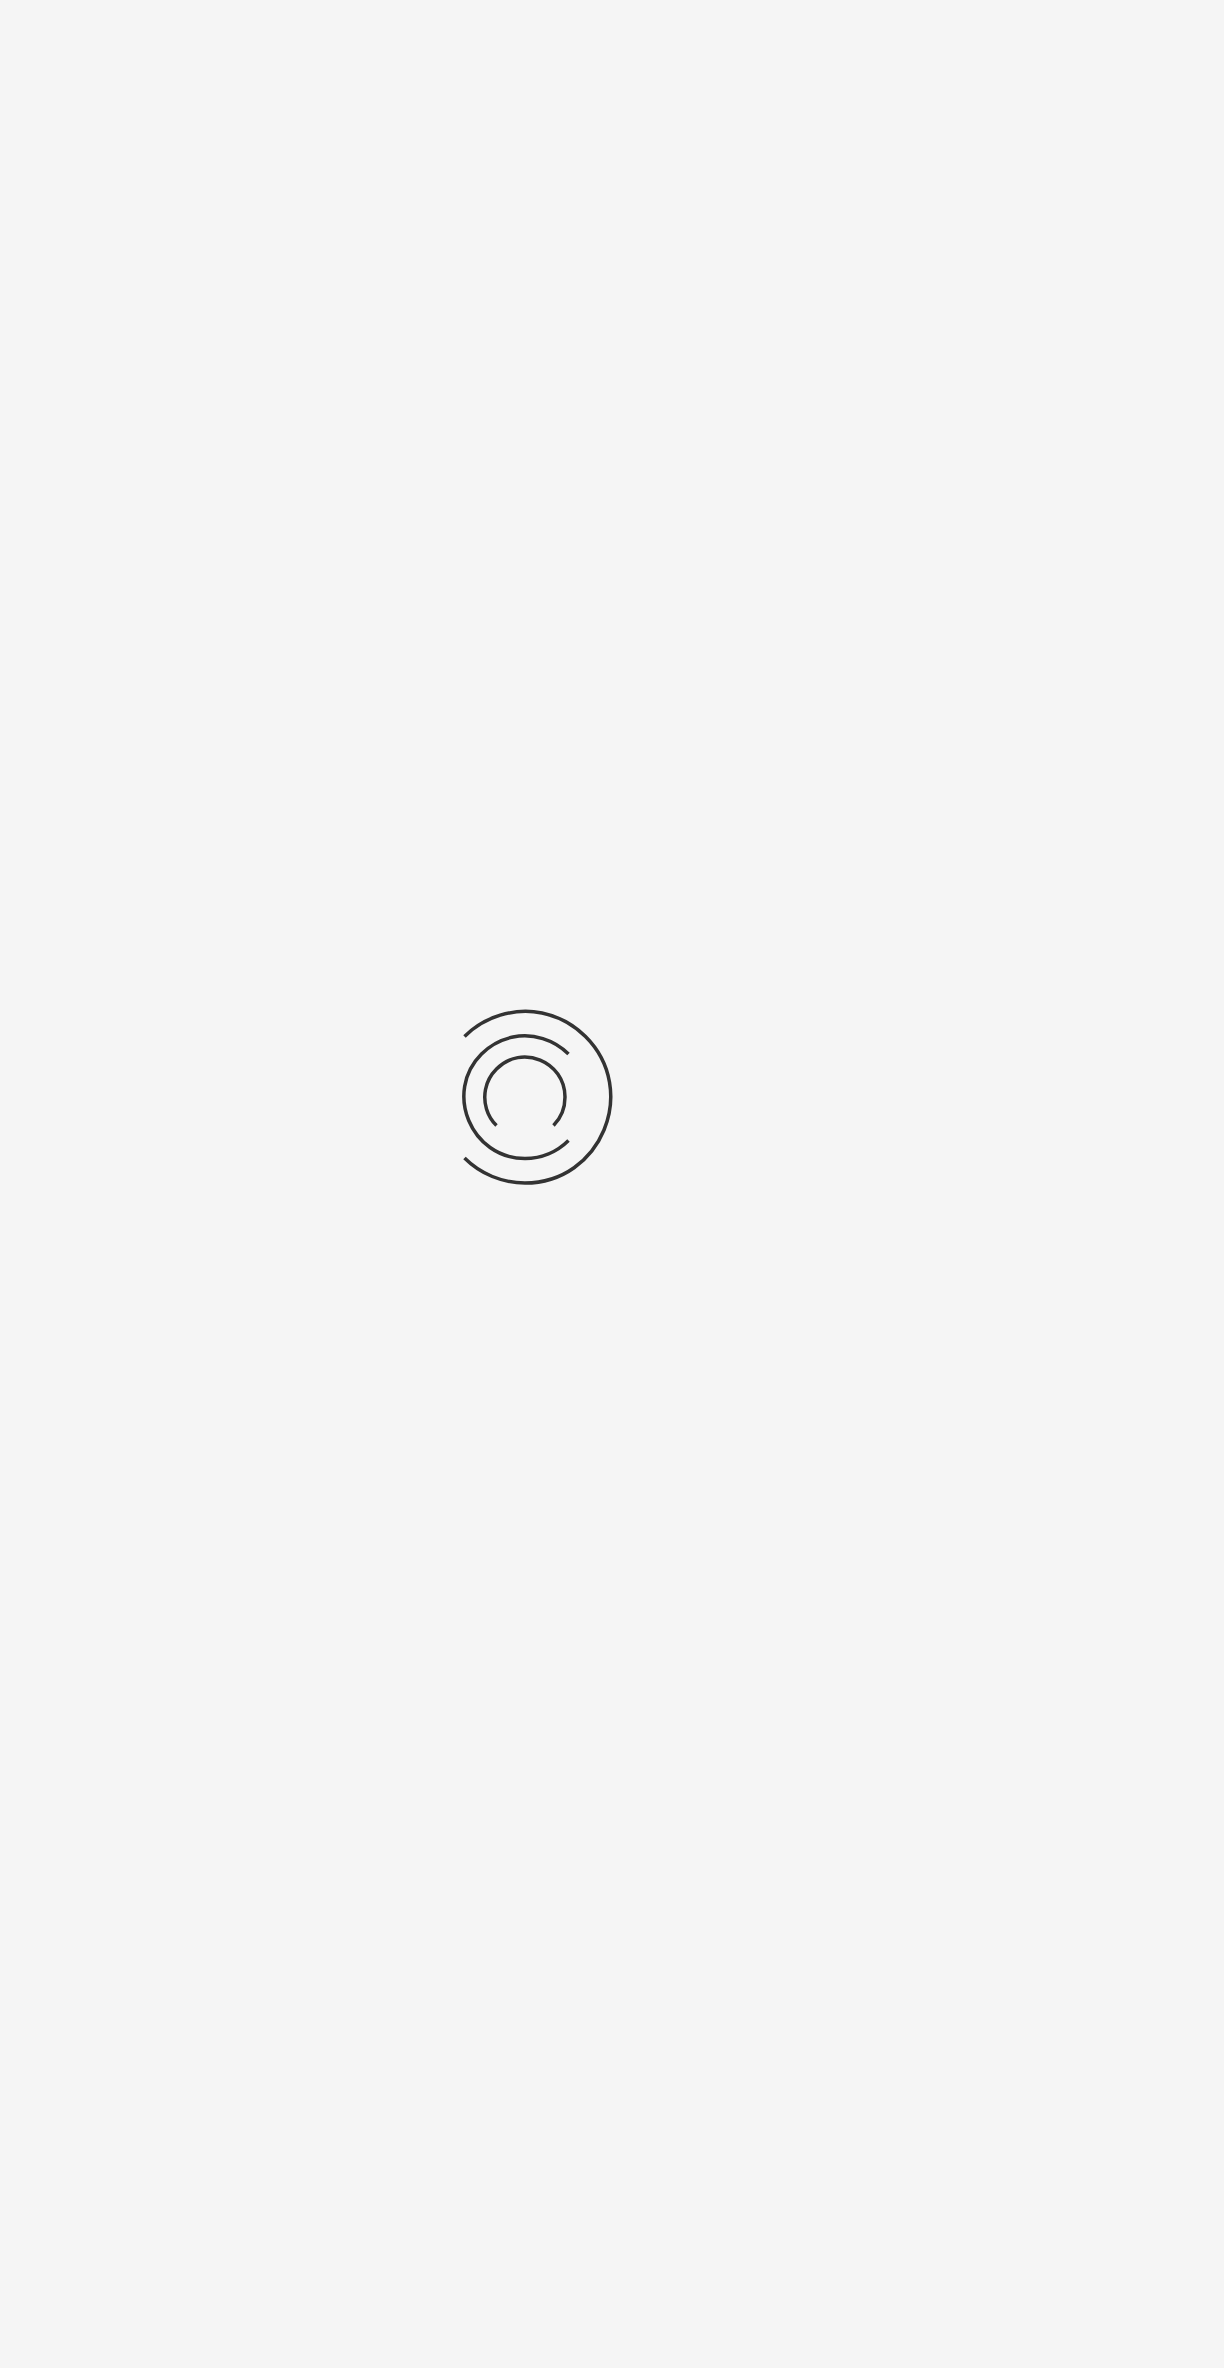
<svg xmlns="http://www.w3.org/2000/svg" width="1224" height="2368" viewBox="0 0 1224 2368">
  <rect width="100%" height="100%" fill="#f5f5f5"/>
  <path d="M464.5 1036.5C484.5 1016.5 514 1007.5 542 1013C558.5 1016.5 573.5 1024.5 585.5 1036.5C639.5 1090.5 601 1183 525 1183C502.5 1183 480.5 1174 464.5 1158" fill="none" stroke="#333" stroke-width="3.5"/>
  <path d="M568.5 1140.5C557 1152 541 1158.5 525 1158.5C471 1158.5 443.5 1092 481.5 1054C490 1045.5 501 1039.5 513 1037C533 1033 554 1039.5 568.5 1054" fill="none" stroke="#333" stroke-width="3.5"/>
  <path d="M496.5 1125.5C487 1116.5 483 1102.5 485.5 1089.5C487 1081.5 491 1074.5 496.5 1069C521.5 1043.5 565 1061.5 565 1097C565 1108 561 1118 553.5 1125.5" fill="none" stroke="#333" stroke-width="3.5"/>
</svg>
